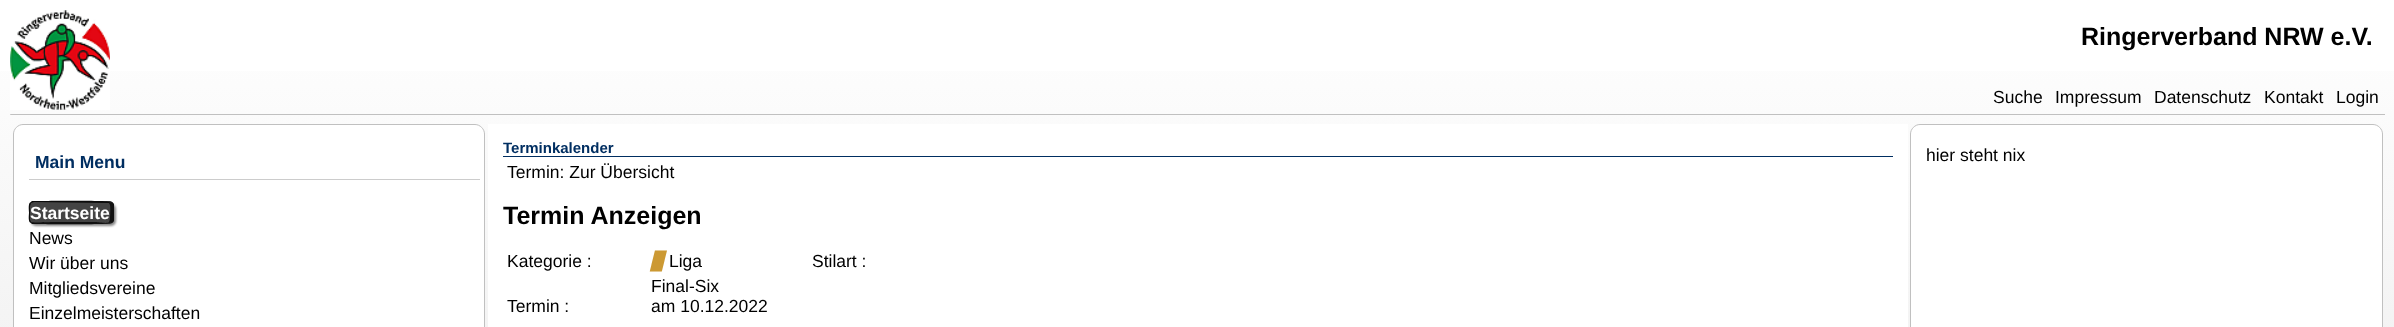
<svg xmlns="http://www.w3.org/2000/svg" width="2394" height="327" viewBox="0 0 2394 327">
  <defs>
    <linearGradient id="g1" gradientUnits="userSpaceOnUse" x1="1198" y1="0" x2="1198" y2="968"><stop offset="0" stop-color="#fff"/><stop offset="0.5" stop-color="#eee"/><stop offset="1" stop-color="#fff"/></linearGradient>
  </defs>
  <rect width="100%" height="100%" fill="#fff"/>
  <path d="M0 71h2394v256H0z" fill="url(#g1)"/>
  <image x="10" y="10" width="100" height="100" href="img/1.png"/>
  <path d="M11 114h2374v1H11z" fill="#c0c0c0"/>
  <circle cx="10.5" cy="114.5" r="0.5" fill="#c0c0c0"/>
  <path d="M23 124.5H475C480 124.5 484.5 129 484.5 134V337.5H13.5V134C13.5 129 18 124.5 23 124.5Z" fill="#fff" stroke="#c0c0c0"/>
  <path d="M29 179h451v1H29z" fill="#ccc"/>
  <rect x="31" y="204" width="85" height="22" rx="5" fill="#888" filter="blur(1px)"/>
  <rect x="29" y="201" width="85" height="23" rx="5" fill="#444"/>
  <path d="M34 202C33 202 32 203 31 203H30L32 201C41 201 110 200 112 202L109 203Z" fill="#0b0b0b"/>
  <path d="M114 220.5C113.5 222 113 222.5 112 223L109 222C110.5 220.5 110.5 206.5 110 205L109 203H108.5L112 202C113 202.5 113.5 203 114 204.5Z" fill="#111"/>
  <path d="M32 224L30 222H31C33 223 51 222 53 222H96C98 222 108 224 109 222L112 223C110 225 41 224 32 224Z" fill="#111"/>
  <path d="M30 222.5C28 220 29 215 29 212.5C29 210 28 205 30 202.5L31 203.5C30.5 204.5 30 205.5 30 207V220L31 221.5Z" fill="#0b0b0b"/>
  <path d="M488 124h1420v203H488z" fill="#fff"/>
  <path d="M503 156h1390v1H503z" fill="#002e61"/>
  <path d="M1920 124.5H2373C2378 124.5 2382.5 129 2382.5 134V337.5H1910.5V134C1910.5 129 1915 124.5 1920 124.5Z" fill="#fff" stroke="#c0c0c0"/>
  <text x="2081" y="45" font-family="Liberation Sans" font-size="25" font-weight="bold" fill="#000">Ringerverband NRW e.V.</text>
  <g font-family="Liberation Sans" font-size="17.5" fill="#000">
    <text x="1993" y="103">Suche</text>
    <text x="2055" y="103">Impressum</text>
    <text x="2154" y="103">Datenschutz</text>
    <text x="2264" y="103">Kontakt</text>
    <text x="2336" y="103">Login</text>
  </g>
  <text x="35" y="168" font-family="Liberation Sans" font-size="17.5" font-weight="bold" fill="#002e61">Main Menu</text>
  <text x="30" y="219" font-family="Liberation Sans" font-size="17.5" font-weight="bold" fill="#fff">Startseite</text>
  <g font-family="Liberation Sans" font-size="17.5" fill="#000">
    <text x="29" y="244">News</text>
    <text x="29" y="269">Wir über uns</text>
    <text x="29" y="294">Mitgliedsvereine</text>
    <text x="29" y="319">Einzelmeisterschaften</text>
  </g>
  <text x="503" y="153" font-family="Liberation Sans" font-size="15" font-weight="bold" fill="#002e61">Terminkalender</text>
  <text x="507" y="178" font-family="Liberation Sans" font-size="17.5" fill="#000">Termin: Zur Übersicht</text>
  <text x="503" y="224" font-family="Liberation Sans" font-size="25" font-weight="bold" fill="#000">Termin Anzeigen</text>
  <text x="507" y="267" font-family="Liberation Sans" font-size="17.5" fill="#000">Kategorie :</text>
  <text x="651" y="267" font-family="DejaVu Sans" font-size="17.5" font-style="italic" fill="#c93">▉</text>
  <g font-family="Liberation Sans" font-size="17.5" fill="#000">
    <text x="669" y="267">Liga</text>
    <text x="812" y="267">Stilart :</text>
    <text x="507" y="312">Termin :</text>
    <text x="651" y="292">Final-Six</text>
    <text x="651" y="312">am 10.12.2022</text>
    <text x="1926" y="161">hier steht nix</text>
  </g>
</svg>
